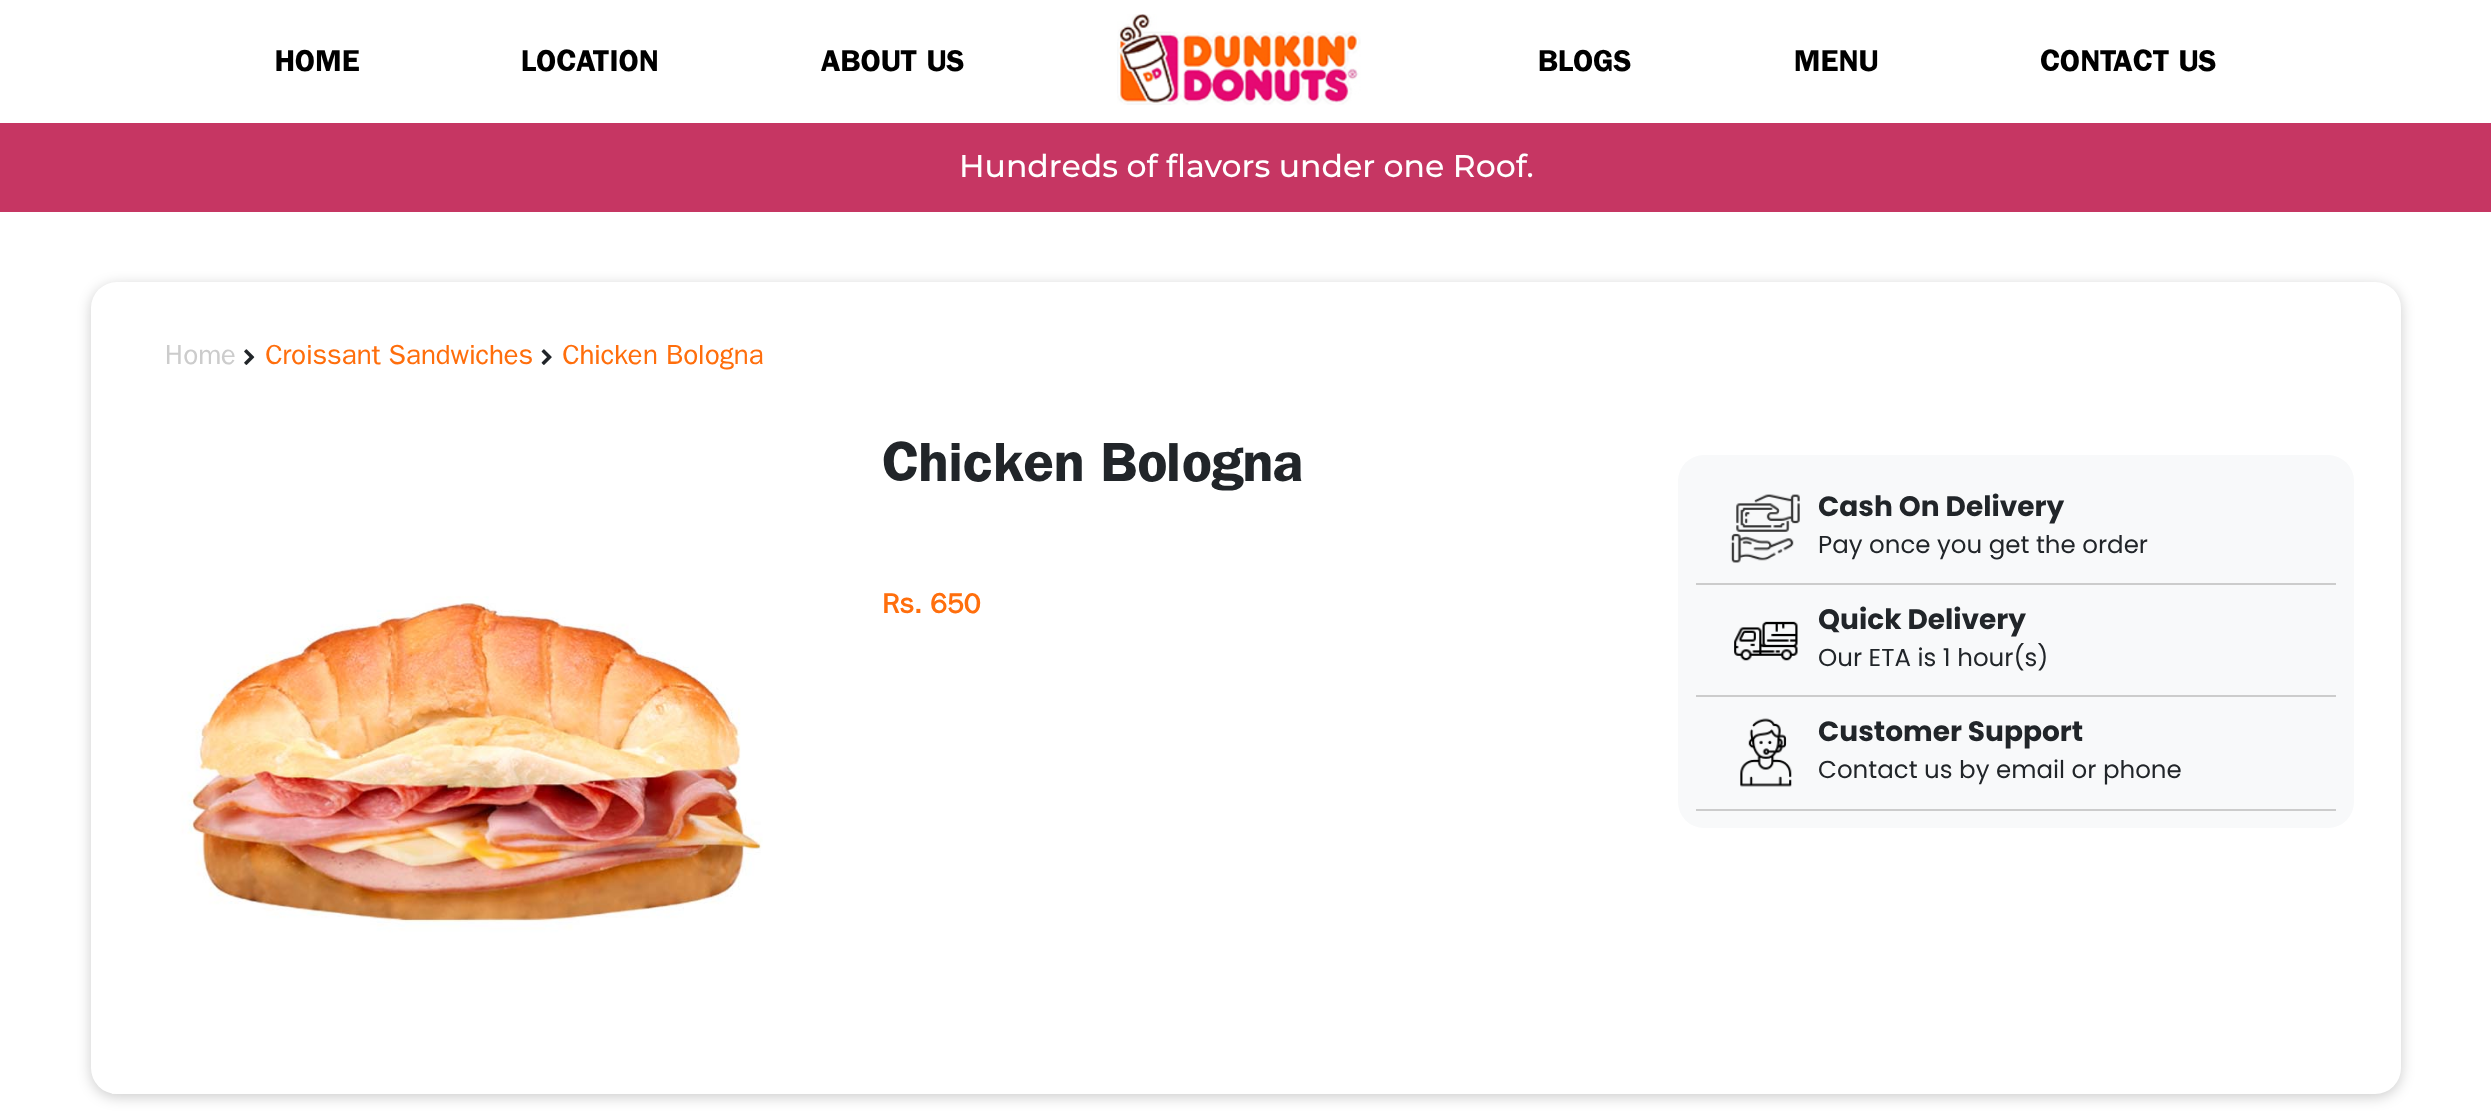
<svg xmlns="http://www.w3.org/2000/svg" width="2491" height="1118" viewBox="0 0 2491 1118">
  <rect width="100%" height="100%" fill="#fff"/>
  <image x="1117" y="14" width="244" height="91" href="img/1.png"/>
  <path d="M0 123h2491v89H0z" fill="#c63663"/>
  <rect x="91" y="285" width="2310" height="812" rx="26" fill="#00000033" filter="blur(7px)"/>
  <rect x="91" y="282" width="2310" height="812" rx="26" fill="#fff"/>
  <image x="244" y="349" width="11" height="16" href="img/2.png"/>
  <image x="541" y="349" width="11" height="16" href="img/3.png"/>
  <image x="112" y="596" width="651" height="498" href="img/4.png"/>
  <rect x="1678" y="455" width="676" height="373" rx="26" fill="#f8f9fa"/>
  <path d="M1696 583h640v2H1696z" fill="#ccc"/>
  <image x="1730" y="494" width="70" height="69" href="img/5.png"/>
  <path d="M1696 695h640v2H1696z" fill="#ccc"/>
  <image x="1734" y="621" width="64" height="40" href="img/6.png"/>
  <path d="M1696 809h640v2H1696z" fill="#ccc"/>
  <image x="1740" y="718" width="52" height="69" href="img/7.png"/>
  <g font-family="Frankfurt" font-size="30.75" font-weight="bold" fill="#000">
    <text x="275" y="71">HOME</text>
    <text x="521" y="71">LOCATION</text>
    <text x="821" y="71">ABOUT US</text>
    <text x="1538" y="71">BLOGS</text>
    <text x="1794" y="71">MENU</text>
    <text x="2040" y="71">CONTACT US</text>
  </g>
  <text x="959" y="177" font-family="Montserrat" font-size="31.5" font-weight="500" fill="#fff">Hundreds of flavors under one Roof.</text>
  <text x="165" y="364" font-family="Frankfurt" font-size="28" font-weight="100" fill="#ccc">Home</text>
  <g font-family="Frankfurt" font-size="28" font-weight="100" fill="#ff6e0c">
    <text x="265" y="364">Croissant Sandwiches</text>
    <text x="562" y="364">Chicken Bologna</text>
  </g>
  <text x="882" y="481" font-family="Frankfurt" font-size="56" font-weight="bold" fill="#212529">Chicken Bologna</text>
  <text x="882" y="613" font-family="'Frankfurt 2'" font-size="28" font-weight="bold" fill="#ff6e0c">Rs. 650</text>
  <text x="1818" y="516" font-family="Poppins" font-size="28" font-weight="bold" fill="#212529">Cash On Delivery</text>
  <text x="1818" y="553" font-family="Poppins" font-size="24.5" fill="#212529">Pay once you get the order</text>
  <text x="1818" y="629" font-family="Poppins" font-size="28" font-weight="bold" fill="#212529">Quick Delivery</text>
  <text x="1818" y="666" font-family="Poppins" font-size="24.5" fill="#212529">Our ETA is 1 hour(s)</text>
  <text x="1818" y="741" font-family="Poppins" font-size="28" font-weight="bold" fill="#212529">Customer Support</text>
  <text x="1818" y="778" font-family="Poppins" font-size="24.5" fill="#212529">Contact us by email or phone</text>
</svg>
